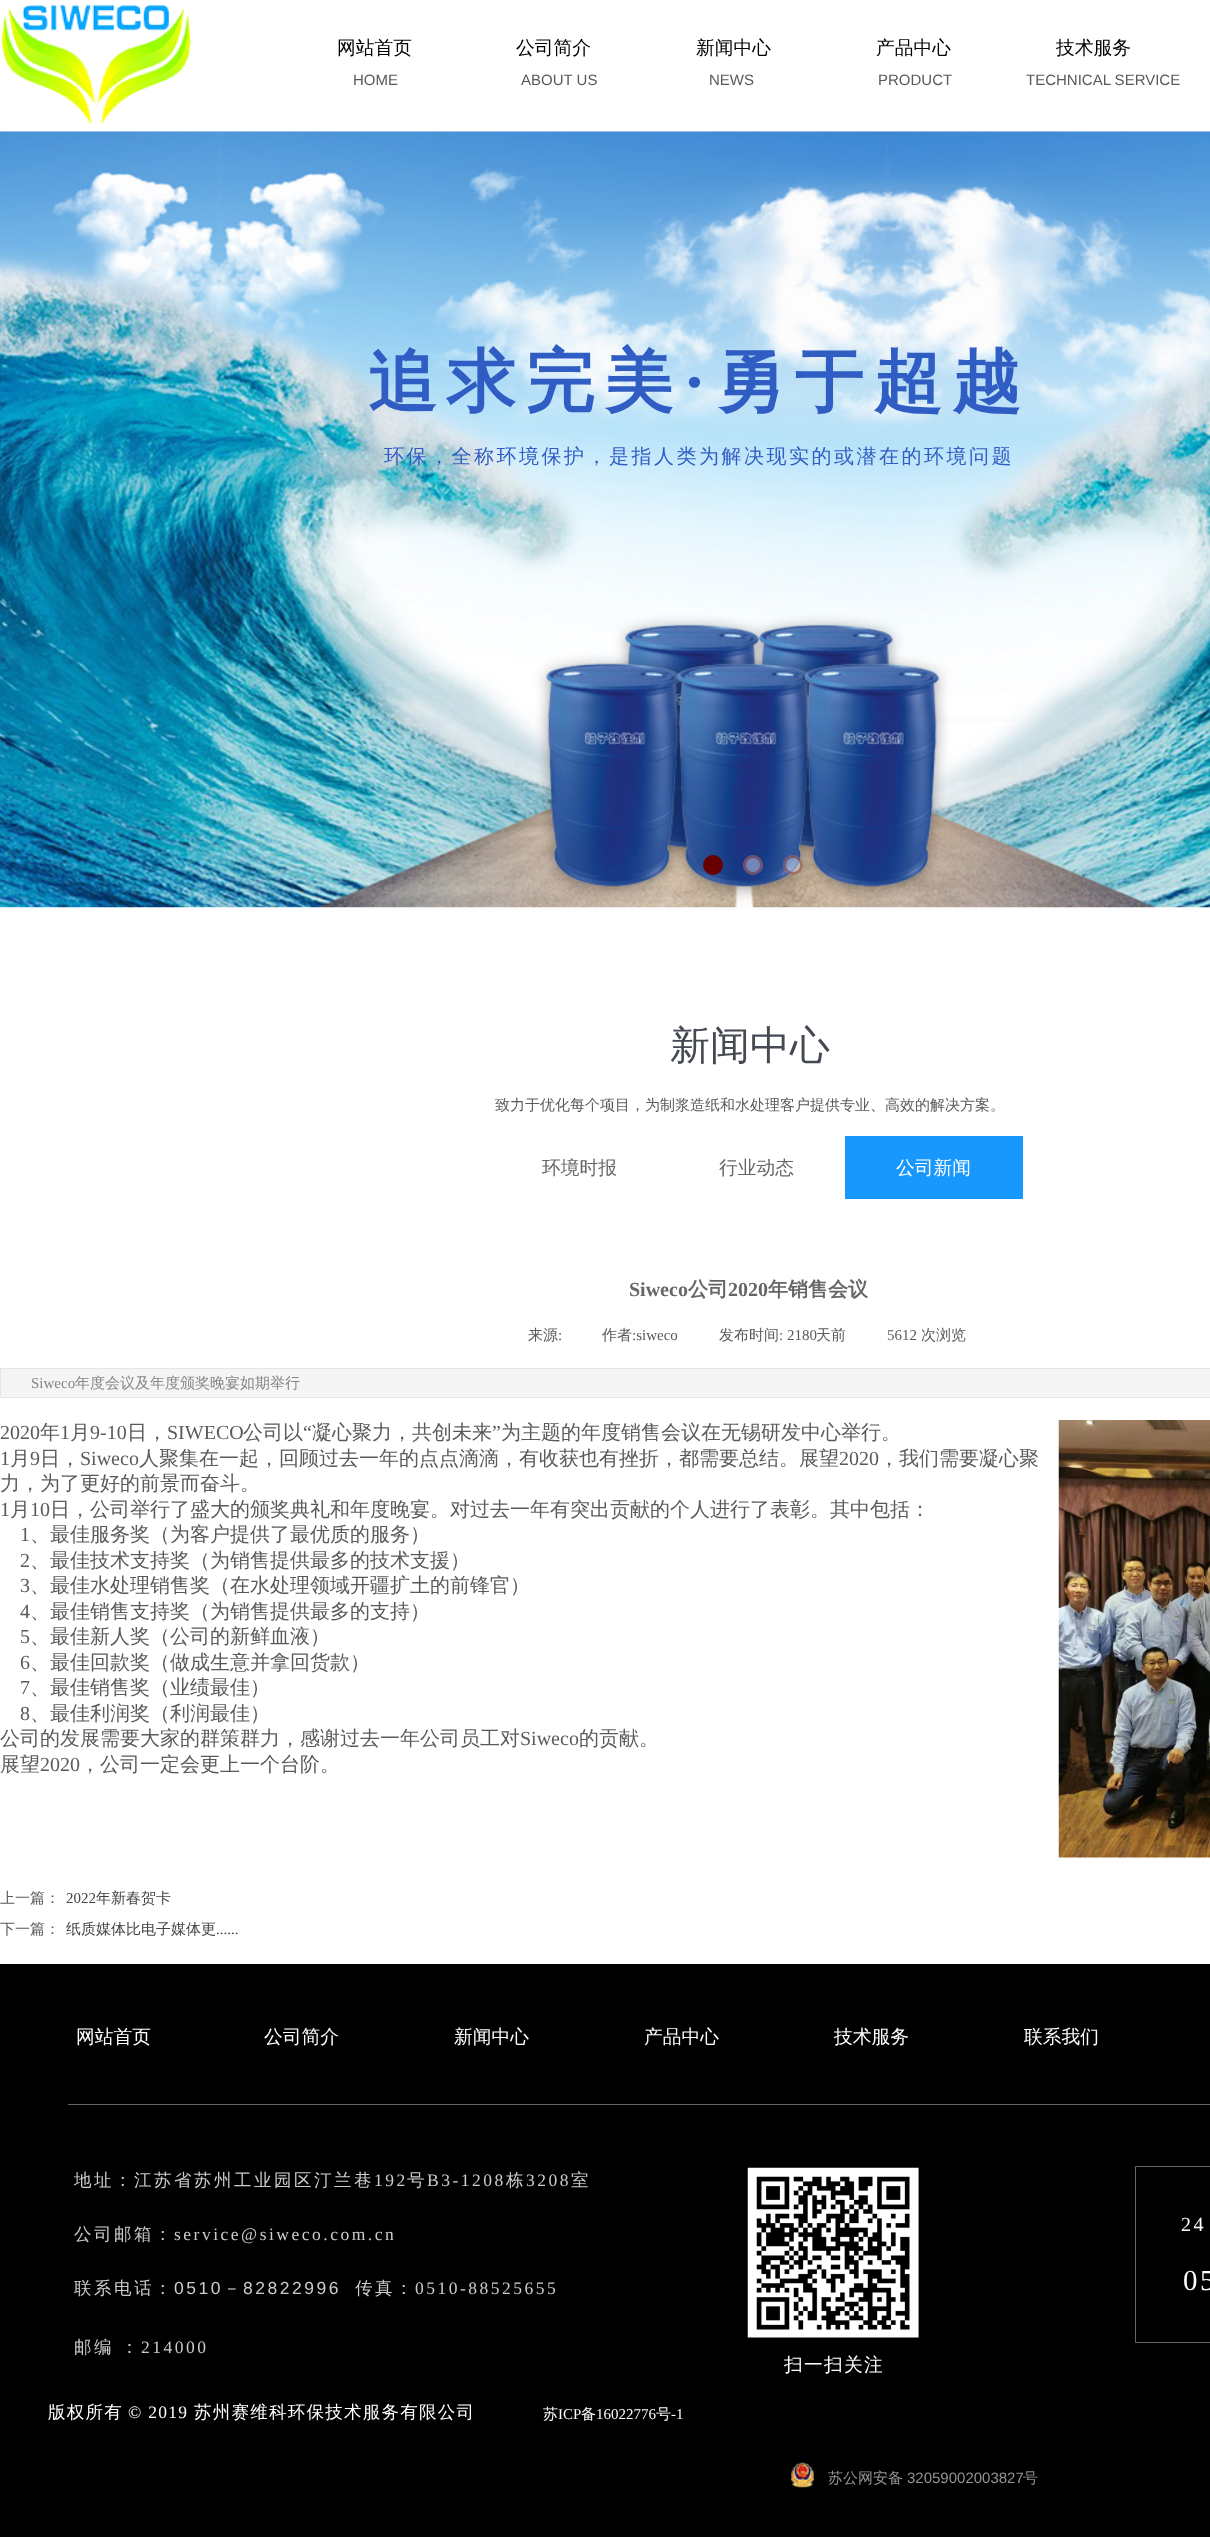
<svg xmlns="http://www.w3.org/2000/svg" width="1210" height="2537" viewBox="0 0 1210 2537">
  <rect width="100%" height="100%" fill="#fff"/>
  <image x="1" y="4" width="191" height="120" href="img/1.png"/>
  <image x="0" y="131" width="1210" height="777" href="img/2.png"/>
  <circle cx="713" cy="865" r="8.5" fill="#600" stroke="#600" stroke-width="3"/>
  <circle cx="753" cy="865" r="10" fill="#ffffff66"/>
  <circle cx="753" cy="865" r="8.5" fill="none" stroke="#66000066" stroke-width="3"/>
  <circle cx="793" cy="865" r="10" fill="#ffffff66"/>
  <circle cx="793" cy="865" r="8.5" fill="none" stroke="#66000066" stroke-width="3"/>
  <path d="M845 1136h178v63H845z" fill="#1898fd"/>
  <path d="M0.5 1368.5h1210v29H0.5z" fill="#f5f5f5" stroke="#e5e5e5"/>
  <image x="1058" y="1420" width="152" height="438" href="img/3.png"/>
  <path d="M0 1964h1210v573H0z" fill="#000"/>
  <path d="M68 2104h1142v1H68z" fill="#666"/>
  <image x="747" y="2167" width="172" height="171" href="img/4.png"/>
  <path d="M1135.5 2166.5h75v176H1135.5z" fill="none" stroke="#666"/>
  <image x="791" y="2462" width="23" height="26" href="img/5.png"/>
  <g font-family="WenQuanYi Zen Hei" font-size="18.75" font-weight="500" fill="#000">
    <text x="337" y="54">网站首页</text>
    <text x="516" y="54">公司简介</text>
    <text x="696" y="54">新闻中心</text>
    <text x="876" y="54">产品中心</text>
    <text x="1056" y="54">技术服务</text>
  </g>
  <g font-family="Liberation Sans" font-size="15" fill="#5a5a5a">
    <text x="353" y="85">HOME</text>
    <text x="521" y="85">ABOUT US</text>
    <text x="709" y="85">NEWS</text>
    <text x="878" y="85">PRODUCT</text>
    <text x="1026" y="85">TECHNICAL SERVICE</text>
  </g>
  <text x="368" y="405" font-family="WenQuanYi Zen Hei" font-size="68.75" font-weight="bold" letter-spacing="10" fill="#305dc3">追求完美</text>
  <text x="683" y="405" font-family="Liberation Serif" font-size="68.75" font-weight="bold" letter-spacing="10" fill="#305dc3">·</text>
  <text x="716" y="405" font-family="WenQuanYi Zen Hei" font-size="68.75" font-weight="bold" letter-spacing="10" fill="#305dc3">勇于超越</text>
  <text x="384" y="463" font-family="WenQuanYi Zen Hei" font-size="20" font-weight="500" letter-spacing="2.5" fill="#305dc3">环保，全称环境保护，是指人类为解决现实的或潜在的环境问题</text>
  <text x="670" y="1059" font-family="WenQuanYi Zen Hei" font-size="40" font-weight="500" fill="#454952">新闻中心</text>
  <text x="495" y="1110" font-family="WenQuanYi Zen Hei" font-size="15" font-weight="500" fill="#5a5a5a">致力于优化每个项目，为制浆造纸和水处理客户提供专业、高效的解决方案。</text>
  <g font-family="WenQuanYi Zen Hei" font-size="18.75" font-weight="500" fill="#666">
    <text x="542" y="1174">环境时报</text>
    <text x="719" y="1174">行业动态</text>
  </g>
  <text x="896" y="1174" font-family="WenQuanYi Zen Hei" font-size="18.75" font-weight="500" fill="#fff">公司新闻</text>
  <text x="629" y="1296" font-family="Liberation Serif" font-size="20" font-weight="bold" fill="#666">Siweco</text>
  <text x="688" y="1296" font-family="WenQuanYi Zen Hei" font-size="20" font-weight="bold" fill="#666">公司</text>
  <text x="728" y="1296" font-family="Liberation Serif" font-size="20" font-weight="bold" fill="#666">2020</text>
  <text x="768" y="1296" font-family="WenQuanYi Zen Hei" font-size="20" font-weight="bold" fill="#666">年销售会议</text>
  <text x="528" y="1340" font-family="WenQuanYi Zen Hei" font-size="15" font-weight="500" fill="#5a5a5a">来源</text>
  <text x="558" y="1340" font-family="Liberation Serif" font-size="15" fill="#5a5a5a">:</text>
  <text x="602" y="1340" font-family="WenQuanYi Zen Hei" font-size="15" font-weight="500" fill="#5a5a5a">作者</text>
  <text x="632" y="1340" font-family="Liberation Serif" font-size="15" fill="#5a5a5a">:siweco</text>
  <text x="719" y="1340" font-family="WenQuanYi Zen Hei" font-size="15" font-weight="500" fill="#5a5a5a">发布时间</text>
  <text x="779" y="1340" font-family="Liberation Serif" font-size="15" fill="#5a5a5a">: 2180</text>
  <text x="816" y="1340" font-family="WenQuanYi Zen Hei" font-size="15" font-weight="500" fill="#5a5a5a">天前</text>
  <text x="887" y="1340" font-family="Liberation Serif" font-size="15" fill="#5a5a5a">5612</text>
  <text x="921" y="1340" font-family="WenQuanYi Zen Hei" font-size="15" font-weight="500" fill="#5a5a5a">次浏览</text>
  <text x="31" y="1388" font-family="Liberation Serif" font-size="15" fill="#868686">Siweco</text>
  <text x="75" y="1388" font-family="WenQuanYi Zen Hei" font-size="15" font-weight="500" fill="#868686">年度会议及年度颁奖晚宴如期举行</text>
  <text x="0" y="1439" font-family="Liberation Serif" font-size="20" fill="#5a5a5a">2020</text>
  <text x="40" y="1439" font-family="WenQuanYi Zen Hei" font-size="20" font-weight="500" fill="#5a5a5a">年</text>
  <text x="60" y="1439" font-family="Liberation Serif" font-size="20" fill="#5a5a5a">1</text>
  <text x="70" y="1439" font-family="WenQuanYi Zen Hei" font-size="20" font-weight="500" fill="#5a5a5a">月</text>
  <text x="90" y="1439" font-family="Liberation Serif" font-size="20" fill="#5a5a5a">9-10</text>
  <text x="127" y="1439" font-family="WenQuanYi Zen Hei" font-size="20" font-weight="500" fill="#5a5a5a">日，</text>
  <text x="167" y="1439" font-family="Liberation Serif" font-size="20" fill="#5a5a5a">SIWECO</text>
  <text x="243" y="1439" font-family="WenQuanYi Zen Hei" font-size="20" font-weight="500" fill="#5a5a5a">公司以</text>
  <text x="303" y="1439" font-family="Liberation Serif" font-size="20" fill="#5a5a5a">“</text>
  <text x="312" y="1439" font-family="WenQuanYi Zen Hei" font-size="20" font-weight="500" fill="#5a5a5a">凝心聚力，共创未来</text>
  <text x="492" y="1439" font-family="Liberation Serif" font-size="20" fill="#5a5a5a">”</text>
  <text x="501" y="1439" font-family="WenQuanYi Zen Hei" font-size="20" font-weight="500" fill="#5a5a5a">为主题的年度销售会议在无锡研发中心举行。</text>
  <text x="0" y="1465" font-family="Liberation Serif" font-size="20" fill="#5a5a5a">1</text>
  <text x="10" y="1465" font-family="WenQuanYi Zen Hei" font-size="20" font-weight="500" fill="#5a5a5a">月</text>
  <text x="30" y="1465" font-family="Liberation Serif" font-size="20" fill="#5a5a5a">9</text>
  <text x="40" y="1465" font-family="WenQuanYi Zen Hei" font-size="20" font-weight="500" fill="#5a5a5a">日，</text>
  <text x="80" y="1465" font-family="Liberation Serif" font-size="20" fill="#5a5a5a">Siweco</text>
  <text x="139" y="1465" font-family="WenQuanYi Zen Hei" font-size="20" font-weight="500" fill="#5a5a5a">人聚集在一起，回顾过去一年的点点滴滴，有收获也有挫折，都需要总结。展望</text>
  <text x="839" y="1465" font-family="Liberation Serif" font-size="20" fill="#5a5a5a">2020</text>
  <g font-family="WenQuanYi Zen Hei" font-size="20" font-weight="500" fill="#5a5a5a">
    <text x="879" y="1465">，我们需要凝心聚</text>
    <text x="0" y="1490">力，为了更好的前景而奋斗。</text>
  </g>
  <text x="0" y="1516" font-family="Liberation Serif" font-size="20" fill="#5a5a5a">1</text>
  <text x="10" y="1516" font-family="WenQuanYi Zen Hei" font-size="20" font-weight="500" fill="#5a5a5a">月</text>
  <text x="30" y="1516" font-family="Liberation Serif" font-size="20" fill="#5a5a5a">10</text>
  <text x="50" y="1516" font-family="WenQuanYi Zen Hei" font-size="20" font-weight="500" fill="#5a5a5a">日，公司举行了盛大的颁奖典礼和年度晚宴。对过去一年有突出贡献的个人进行了表彰。其中包括：</text>
  <text x="20" y="1541" font-family="Liberation Serif" font-size="20" fill="#5a5a5a">1</text>
  <text x="30" y="1541" font-family="WenQuanYi Zen Hei" font-size="20" font-weight="500" fill="#5a5a5a">、最佳服务奖（为客户提供了最优质的服务）</text>
  <text x="20" y="1567" font-family="Liberation Serif" font-size="20" fill="#5a5a5a">2</text>
  <text x="30" y="1567" font-family="WenQuanYi Zen Hei" font-size="20" font-weight="500" fill="#5a5a5a">、最佳技术支持奖（为销售提供最多的技术支援）</text>
  <text x="20" y="1592" font-family="Liberation Serif" font-size="20" fill="#5a5a5a">3</text>
  <text x="30" y="1592" font-family="WenQuanYi Zen Hei" font-size="20" font-weight="500" fill="#5a5a5a">、最佳水处理销售奖（在水处理领域开疆扩土的前锋官）</text>
  <text x="20" y="1618" font-family="Liberation Serif" font-size="20" fill="#5a5a5a">4</text>
  <text x="30" y="1618" font-family="WenQuanYi Zen Hei" font-size="20" font-weight="500" fill="#5a5a5a">、最佳销售支持奖（为销售提供最多的支持）</text>
  <text x="20" y="1643" font-family="Liberation Serif" font-size="20" fill="#5a5a5a">5</text>
  <text x="30" y="1643" font-family="WenQuanYi Zen Hei" font-size="20" font-weight="500" fill="#5a5a5a">、最佳新人奖（公司的新鲜血液）</text>
  <text x="20" y="1669" font-family="Liberation Serif" font-size="20" fill="#5a5a5a">6</text>
  <text x="30" y="1669" font-family="WenQuanYi Zen Hei" font-size="20" font-weight="500" fill="#5a5a5a">、最佳回款奖（做成生意并拿回货款）</text>
  <text x="20" y="1694" font-family="Liberation Serif" font-size="20" fill="#5a5a5a">7</text>
  <text x="30" y="1694" font-family="WenQuanYi Zen Hei" font-size="20" font-weight="500" fill="#5a5a5a">、最佳销售奖（业绩最佳）</text>
  <text x="20" y="1720" font-family="Liberation Serif" font-size="20" fill="#5a5a5a">8</text>
  <g font-family="WenQuanYi Zen Hei" font-size="20" font-weight="500" fill="#5a5a5a">
    <text x="30" y="1720">、最佳利润奖（利润最佳）</text>
    <text x="0" y="1745">公司的发展需要大家的群策群力，感谢过去一年公司员工对</text>
  </g>
  <text x="520" y="1745" font-family="Liberation Serif" font-size="20" fill="#5a5a5a">Siweco</text>
  <g font-family="WenQuanYi Zen Hei" font-size="20" font-weight="500" fill="#5a5a5a">
    <text x="579" y="1745">的贡献。</text>
    <text x="0" y="1771">展望</text>
  </g>
  <text x="40" y="1771" font-family="Liberation Serif" font-size="20" fill="#5a5a5a">2020</text>
  <text x="80" y="1771" font-family="WenQuanYi Zen Hei" font-size="20" font-weight="500" fill="#5a5a5a">，公司一定会更上一个台阶。</text>
  <text x="0" y="1903" font-family="WenQuanYi Zen Hei" font-size="15" font-weight="500" fill="#5a5a5a">上一篇：</text>
  <text x="66" y="1903" font-family="Liberation Serif" font-size="15" fill="#444">2022</text>
  <text x="96" y="1903" font-family="WenQuanYi Zen Hei" font-size="15" font-weight="500" fill="#444">年新春贺卡</text>
  <text x="0" y="1934" font-family="WenQuanYi Zen Hei" font-size="15" font-weight="500" fill="#5a5a5a">下一篇：</text>
  <text x="66" y="1934" font-family="WenQuanYi Zen Hei" font-size="15" font-weight="500" fill="#444">纸质媒体比电子媒体更</text>
  <text x="216" y="1934" font-family="Liberation Serif" font-size="15" fill="#444">......</text>
  <g font-family="WenQuanYi Zen Hei" font-size="18.75" font-weight="500" fill="#fff">
    <text x="76" y="2043">网站首页</text>
    <text x="264" y="2043">公司简介</text>
    <text x="454" y="2043">新闻中心</text>
    <text x="644" y="2043">产品中心</text>
    <text x="834" y="2043">技术服务</text>
    <text x="1024" y="2043">联系我们</text>
  </g>
  <text x="74" y="2186" font-family="WenQuanYi Zen Hei" font-size="17.5" font-weight="500" letter-spacing="2.5" fill="#ccc">地址：江苏省苏州工业园区汀兰巷</text>
  <text x="374" y="2186" font-family="Liberation Serif" font-size="17.5" letter-spacing="2.5" fill="#ccc">192</text>
  <text x="407" y="2186" font-family="WenQuanYi Zen Hei" font-size="17.5" font-weight="500" letter-spacing="2.5" fill="#ccc">号</text>
  <text x="427" y="2186" font-family="Liberation Serif" font-size="17.5" letter-spacing="2.5" fill="#ccc">B3-1208</text>
  <text x="506" y="2186" font-family="WenQuanYi Zen Hei" font-size="17.5" font-weight="500" letter-spacing="2.5" fill="#ccc">栋</text>
  <text x="526" y="2186" font-family="Liberation Serif" font-size="17.5" letter-spacing="2.5" fill="#ccc">3208</text>
  <g font-family="WenQuanYi Zen Hei" font-size="17.5" font-weight="500" letter-spacing="2.5" fill="#ccc">
    <text x="571" y="2186">室</text>
    <text x="74" y="2240">公司邮箱：</text>
  </g>
  <text x="174" y="2240" font-family="Liberation Serif" font-size="17.5" letter-spacing="2.5" fill="#ccc">service@siweco.com.cn</text>
  <text x="1181" y="2231" font-family="Liberation Serif" font-size="20" letter-spacing="2.5" fill="#fff">24</text>
  <text x="1183" y="2290" font-family="Liberation Serif" font-size="29" letter-spacing="2.5" fill="#fff">05</text>
  <text x="74" y="2294" font-family="WenQuanYi Zen Hei" font-size="17.5" font-weight="500" letter-spacing="2.5" fill="#ccc">联系电话：</text>
  <text x="174" y="2294" font-family="Liberation Sans" font-size="17.5" letter-spacing="2.5" fill="#ccc">0510</text>
  <text x="223" y="2294" font-family="WenQuanYi Zen Hei" font-size="17.5" font-weight="500" letter-spacing="2.5" fill="#ccc">－</text>
  <text x="243" y="2294" font-family="Liberation Sans" font-size="17.5" letter-spacing="2.5" fill="#ccc">82822996</text>
  <text x="355" y="2294" font-family="WenQuanYi Zen Hei" font-size="17.5" font-weight="500" letter-spacing="2.5" fill="#ccc">传真：</text>
  <text x="415" y="2294" font-family="Liberation Serif" font-size="17.5" letter-spacing="2.5" fill="#ccc">0510-88525655</text>
  <text x="74" y="2353" word-spacing="-1" font-family="WenQuanYi Zen Hei" font-size="17.5" font-weight="500" letter-spacing="2.5" fill="#ccc">邮编 ：</text>
  <text x="141" y="2353" font-family="Liberation Serif" font-size="17.5" letter-spacing="2.5" fill="#ccc">214000</text>
  <text x="784" y="2371" font-family="WenQuanYi Zen Hei" font-size="18.75" font-weight="500" letter-spacing="1.25" fill="#fff">扫一扫关注</text>
  <text x="48" y="2418" font-family="WenQuanYi Zen Hei" font-size="17.5" font-weight="500" letter-spacing="1.25" fill="#fff">版权所有</text>
  <text x="128" y="2418" font-family="Liberation Serif" font-size="17.5" letter-spacing="1.25" fill="#fff">© 2019</text>
  <text x="194" y="2418" font-family="WenQuanYi Zen Hei" font-size="17.5" font-weight="500" letter-spacing="1.25" fill="#fff">苏州赛维科环保技术服务有限公司</text>
  <text x="543" y="2419" font-family="WenQuanYi Zen Hei" font-size="15" font-weight="500" fill="#fff">苏</text>
  <text x="558" y="2419" font-family="Liberation Serif" font-size="15" fill="#fff">ICP</text>
  <text x="581" y="2419" font-family="WenQuanYi Zen Hei" font-size="15" font-weight="500" fill="#fff">备</text>
  <text x="596" y="2419" font-family="Liberation Serif" font-size="15" fill="#fff">16022776</text>
  <text x="656" y="2419" font-family="WenQuanYi Zen Hei" font-size="15" font-weight="500" fill="#fff">号</text>
  <text x="671" y="2419" font-family="Liberation Serif" font-size="15" fill="#fff">-1</text>
  <text x="828" y="2483" font-family="WenQuanYi Zen Hei" font-size="15" font-weight="500" fill="#939393">苏公网安备</text>
  <text x="907" y="2483" font-family="Liberation Sans" font-size="15" fill="#939393">32059002003827</text>
  <text x="1023" y="2483" font-family="WenQuanYi Zen Hei" font-size="15" font-weight="500" fill="#939393">号</text>
</svg>
